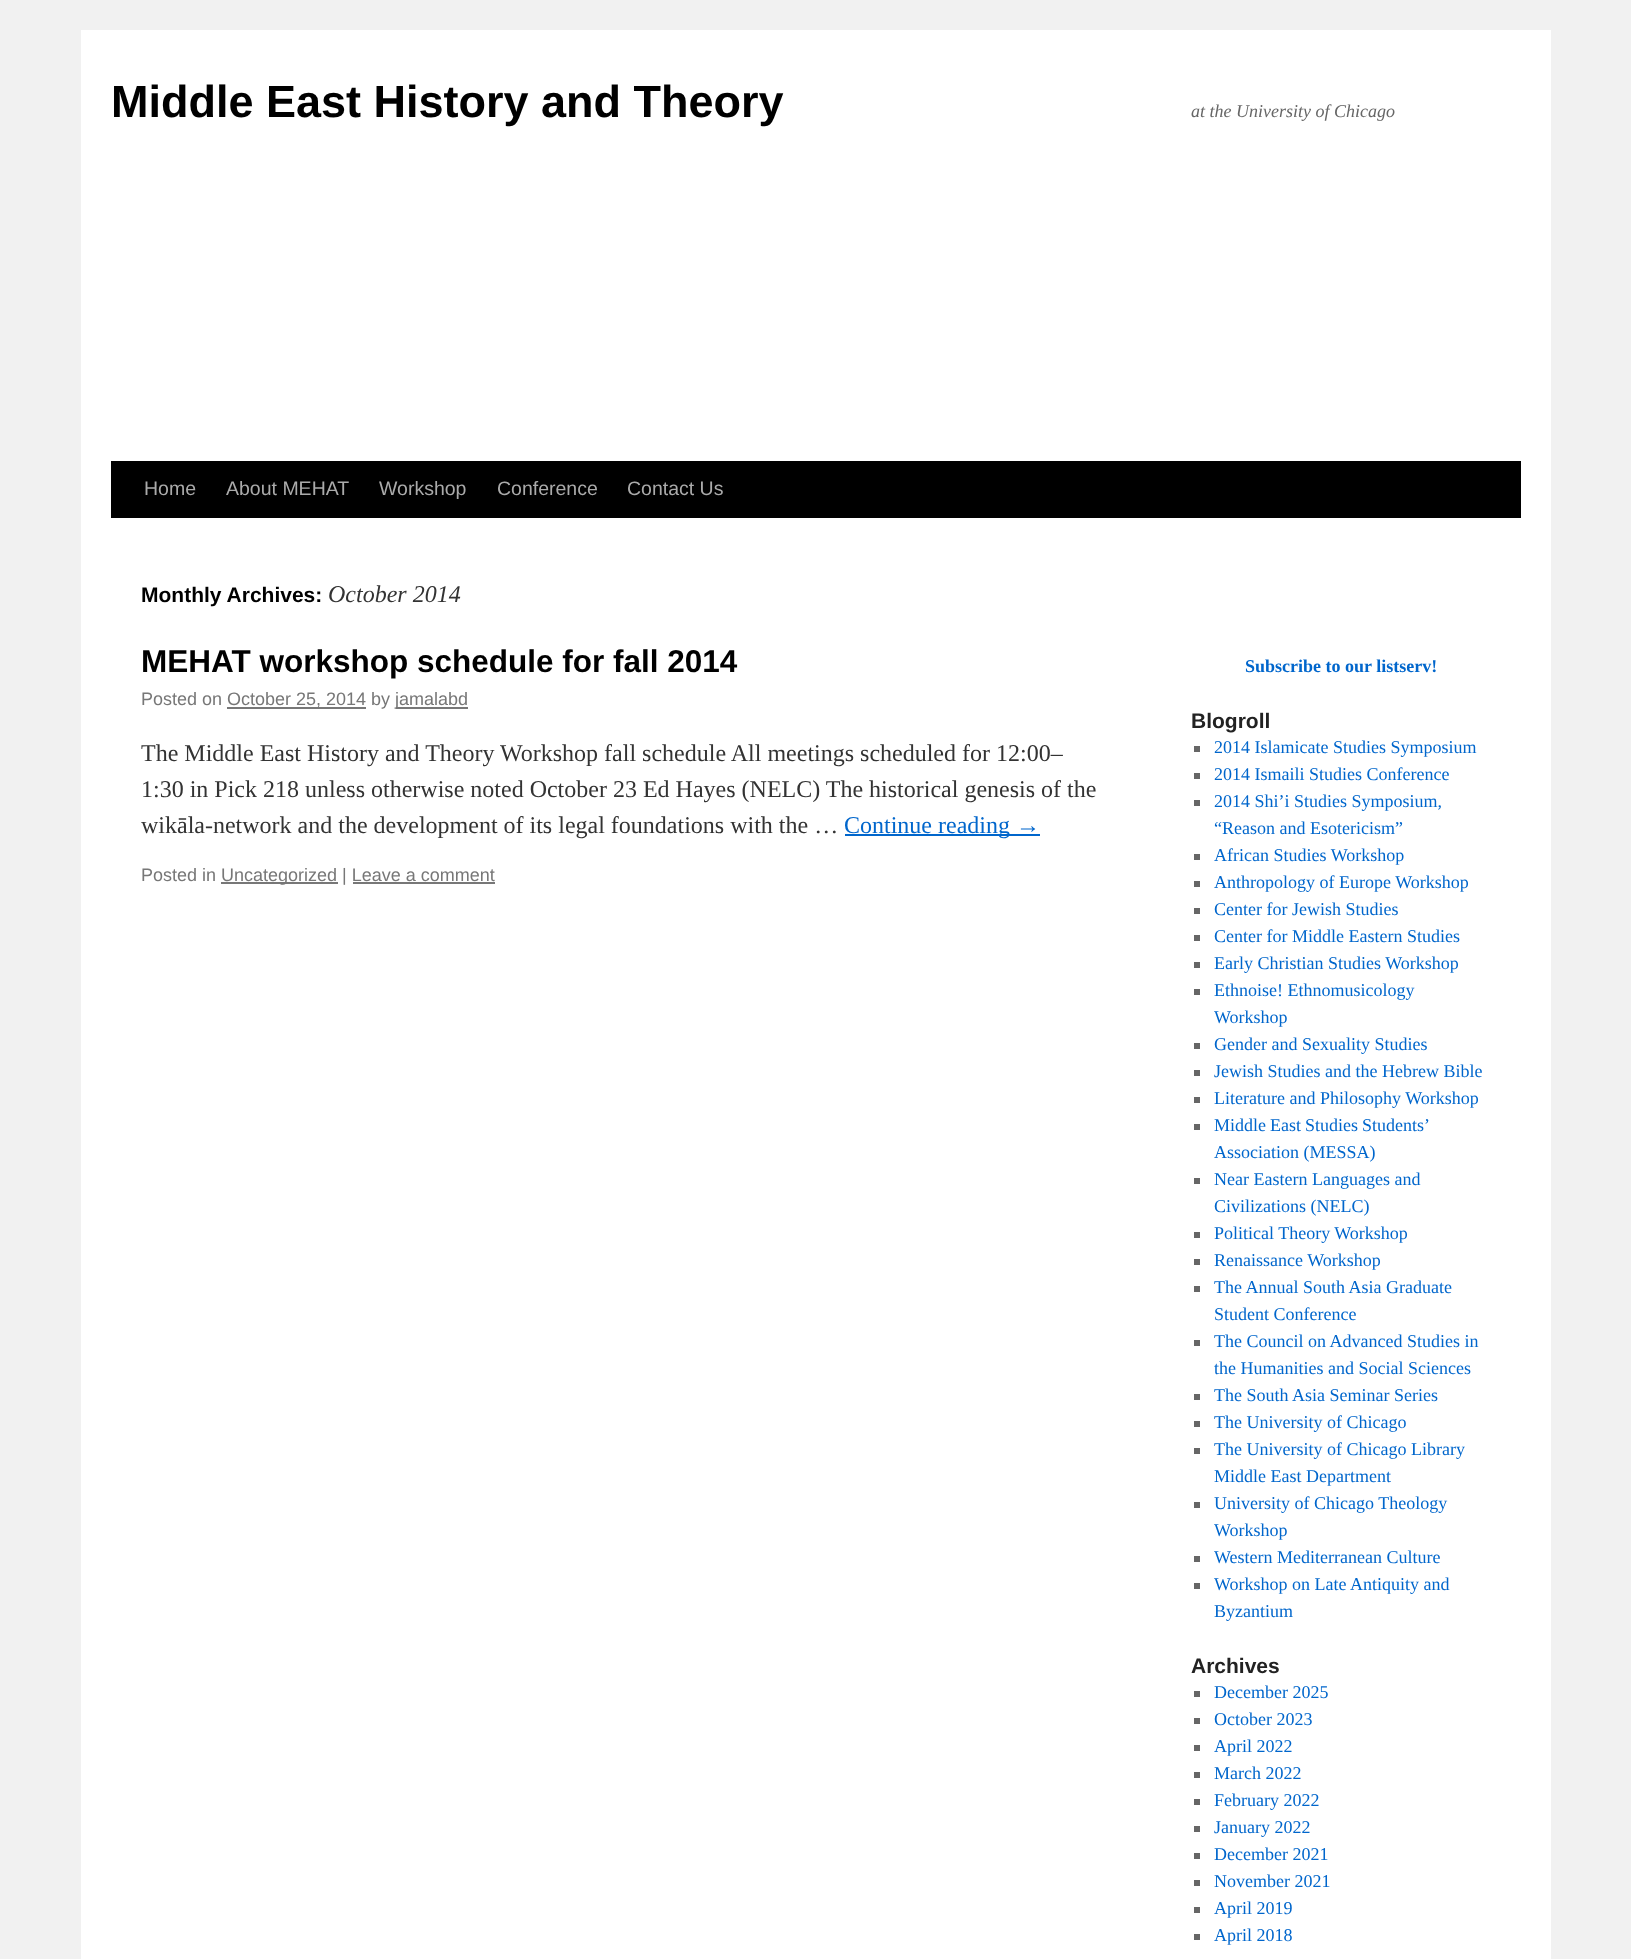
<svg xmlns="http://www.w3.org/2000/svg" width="1631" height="1959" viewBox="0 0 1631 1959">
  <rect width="100%" height="100%" fill="#f1f1f1"/>
  <path d="M81 30h1470v1929H81z" fill="#fff"/>
  <path d="M111 461h1410v57H111z" fill="#000"/>
  <path d="M227 707h139v2H227z" fill="#777"/>
  <path d="M396 707h72v2H396z" fill="#777"/>
  <path d="M845 834h195v2H845z" fill="#06c"/>
  <path d="M221 882h117v2H221z" fill="#777"/>
  <path d="M353 882h142v2H353z" fill="#777"/>
  <path d="M1194 746h6v6H1194z" fill="#666"/>
  <path d="M1194 773h6v6H1194z" fill="#666"/>
  <path d="M1194 800h6v6H1194z" fill="#666"/>
  <path d="M1194 854h6v6H1194z" fill="#666"/>
  <path d="M1194 881h6v6H1194z" fill="#666"/>
  <path d="M1194 908h6v6H1194z" fill="#666"/>
  <path d="M1194 935h6v6H1194z" fill="#666"/>
  <path d="M1194 962h6v6H1194z" fill="#666"/>
  <path d="M1194 989h6v6H1194z" fill="#666"/>
  <path d="M1194 1043h6v6H1194z" fill="#666"/>
  <path d="M1194 1070h6v6H1194z" fill="#666"/>
  <path d="M1194 1097h6v6H1194z" fill="#666"/>
  <path d="M1194 1124h6v6H1194z" fill="#666"/>
  <path d="M1194 1178h6v6H1194z" fill="#666"/>
  <path d="M1194 1232h6v6H1194z" fill="#666"/>
  <path d="M1194 1259h6v6H1194z" fill="#666"/>
  <path d="M1194 1286h6v6H1194z" fill="#666"/>
  <path d="M1194 1340h6v6H1194z" fill="#666"/>
  <path d="M1194 1394h6v6H1194z" fill="#666"/>
  <path d="M1194 1421h6v6H1194z" fill="#666"/>
  <path d="M1194 1448h6v6H1194z" fill="#666"/>
  <path d="M1194 1502h6v6H1194z" fill="#666"/>
  <path d="M1194 1556h6v6H1194z" fill="#666"/>
  <path d="M1194 1583h6v6H1194z" fill="#666"/>
  <path d="M1194 1691h6v6H1194z" fill="#666"/>
  <path d="M1194 1718h6v6H1194z" fill="#666"/>
  <path d="M1194 1745h6v6H1194z" fill="#666"/>
  <path d="M1194 1772h6v6H1194z" fill="#666"/>
  <path d="M1194 1799h6v6H1194z" fill="#666"/>
  <path d="M1194 1826h6v6H1194z" fill="#666"/>
  <path d="M1194 1853h6v6H1194z" fill="#666"/>
  <path d="M1194 1880h6v6H1194z" fill="#666"/>
  <path d="M1194 1907h6v6H1194z" fill="#666"/>
  <path d="M1194 1934h6v6H1194z" fill="#666"/>
  <text x="111" y="117" font-family="Liberation Sans" font-size="45" font-weight="bold" fill="#000">Middle East History and Theory</text>
  <text x="1191" y="117" font-family="Liberation Serif" font-size="18" font-style="italic" fill="#666">at the University of Chicago</text>
  <g font-family="Liberation Sans" font-size="19.5" fill="#aaa">
    <text x="144" y="495">Home</text>
    <text x="226" y="495">About MEHAT</text>
    <text x="379" y="495">Workshop</text>
    <text x="497" y="495">Conference</text>
    <text x="627" y="495">Contact Us</text>
  </g>
  <text x="141" y="602" font-family="Liberation Sans" font-size="21" font-weight="bold" fill="#000">Monthly Archives:</text>
  <text x="328" y="602" font-family="Liberation Serif" font-size="24" font-style="italic" fill="#333">October 2014</text>
  <text x="141" y="672" font-family="Liberation Sans" font-size="31.5" font-weight="bold" fill="#000">MEHAT workshop schedule for fall 2014</text>
  <g font-family="Liberation Sans" font-size="18" fill="#777">
    <text x="141" y="705">Posted on</text>
    <text x="227" y="705">October 25, 2014 by</text>
    <text x="395" y="705">jamalabd</text>
  </g>
  <g font-family="Liberation Serif" font-size="24" fill="#333">
    <text x="141" y="761">The Middle East History and Theory Workshop fall schedule All meetings scheduled for 12:00–</text>
    <text x="141" y="797">1:30 in Pick 218 unless otherwise noted October 23 Ed Hayes (NELC) The historical genesis of the</text>
    <text x="141" y="833">wikāla-network and the development of its legal foundations with the …</text>
  </g>
  <text x="844" y="833" font-family="Liberation Serif" font-size="24" fill="#06c">Continue reading →</text>
  <g font-family="Liberation Sans" font-size="18" fill="#777">
    <text x="141" y="881">Posted in</text>
    <text x="221" y="881">Uncategorized | Leave a comment</text>
  </g>
  <text x="1245" y="672" font-family="Liberation Serif" font-size="18" font-weight="bold" fill="#06c">Subscribe to our listserv!</text>
  <text x="1191" y="728" font-family="Liberation Sans" font-size="21" font-weight="bold" fill="#222">Blogroll</text>
  <g font-family="Liberation Serif" font-size="18" fill="#06c">
    <text x="1214" y="753">2014 Islamicate Studies Symposium</text>
    <text x="1214" y="780">2014 Ismaili Studies Conference</text>
    <text x="1214" y="807">2014 Shi’i Studies Symposium,</text>
    <text x="1214" y="834">“Reason and Esotericism”</text>
    <text x="1214" y="861">African Studies Workshop</text>
    <text x="1214" y="888">Anthropology of Europe Workshop</text>
    <text x="1214" y="915">Center for Jewish Studies</text>
    <text x="1214" y="942">Center for Middle Eastern Studies</text>
    <text x="1214" y="969">Early Christian Studies Workshop</text>
    <text x="1214" y="996">Ethnoise! Ethnomusicology</text>
    <text x="1214" y="1023">Workshop</text>
    <text x="1214" y="1050">Gender and Sexuality Studies</text>
    <text x="1214" y="1077">Jewish Studies and the Hebrew Bible</text>
    <text x="1214" y="1104">Literature and Philosophy Workshop</text>
    <text x="1214" y="1131" word-spacing="-0.5">Middle East Studies Students’</text>
    <text x="1214" y="1158">Association (MESSA)</text>
    <text x="1214" y="1185">Near Eastern Languages and</text>
    <text x="1214" y="1212">Civilizations (NELC)</text>
    <text x="1214" y="1239">Political Theory Workshop</text>
    <text x="1214" y="1266">Renaissance Workshop</text>
    <text x="1214" y="1293">The Annual South Asia Graduate</text>
    <text x="1214" y="1320">Student Conference</text>
    <text x="1214" y="1347">The Council on Advanced Studies in</text>
    <text x="1214" y="1374">the Humanities and Social Sciences</text>
    <text x="1214" y="1401">The South Asia Seminar Series</text>
    <text x="1214" y="1428">The University of Chicago</text>
    <text x="1214" y="1455">The University of Chicago Library</text>
    <text x="1214" y="1482">Middle East Department</text>
    <text x="1214" y="1509">University of Chicago Theology</text>
    <text x="1214" y="1536">Workshop</text>
    <text x="1214" y="1563">Western Mediterranean Culture</text>
    <text x="1214" y="1590">Workshop on Late Antiquity and</text>
    <text x="1214" y="1617">Byzantium</text>
  </g>
  <text x="1191" y="1673" font-family="Liberation Sans" font-size="21" font-weight="bold" fill="#222">Archives</text>
  <g font-family="Liberation Serif" font-size="18" fill="#06c">
    <text x="1214" y="1698">December 2025</text>
    <text x="1214" y="1725">October 2023</text>
    <text x="1214" y="1752">April 2022</text>
    <text x="1214" y="1779">March 2022</text>
    <text x="1214" y="1806">February 2022</text>
    <text x="1214" y="1833">January 2022</text>
    <text x="1214" y="1860">December 2021</text>
    <text x="1214" y="1887">November 2021</text>
    <text x="1214" y="1914">April 2019</text>
    <text x="1214" y="1941">April 2018</text>
  </g>
</svg>
